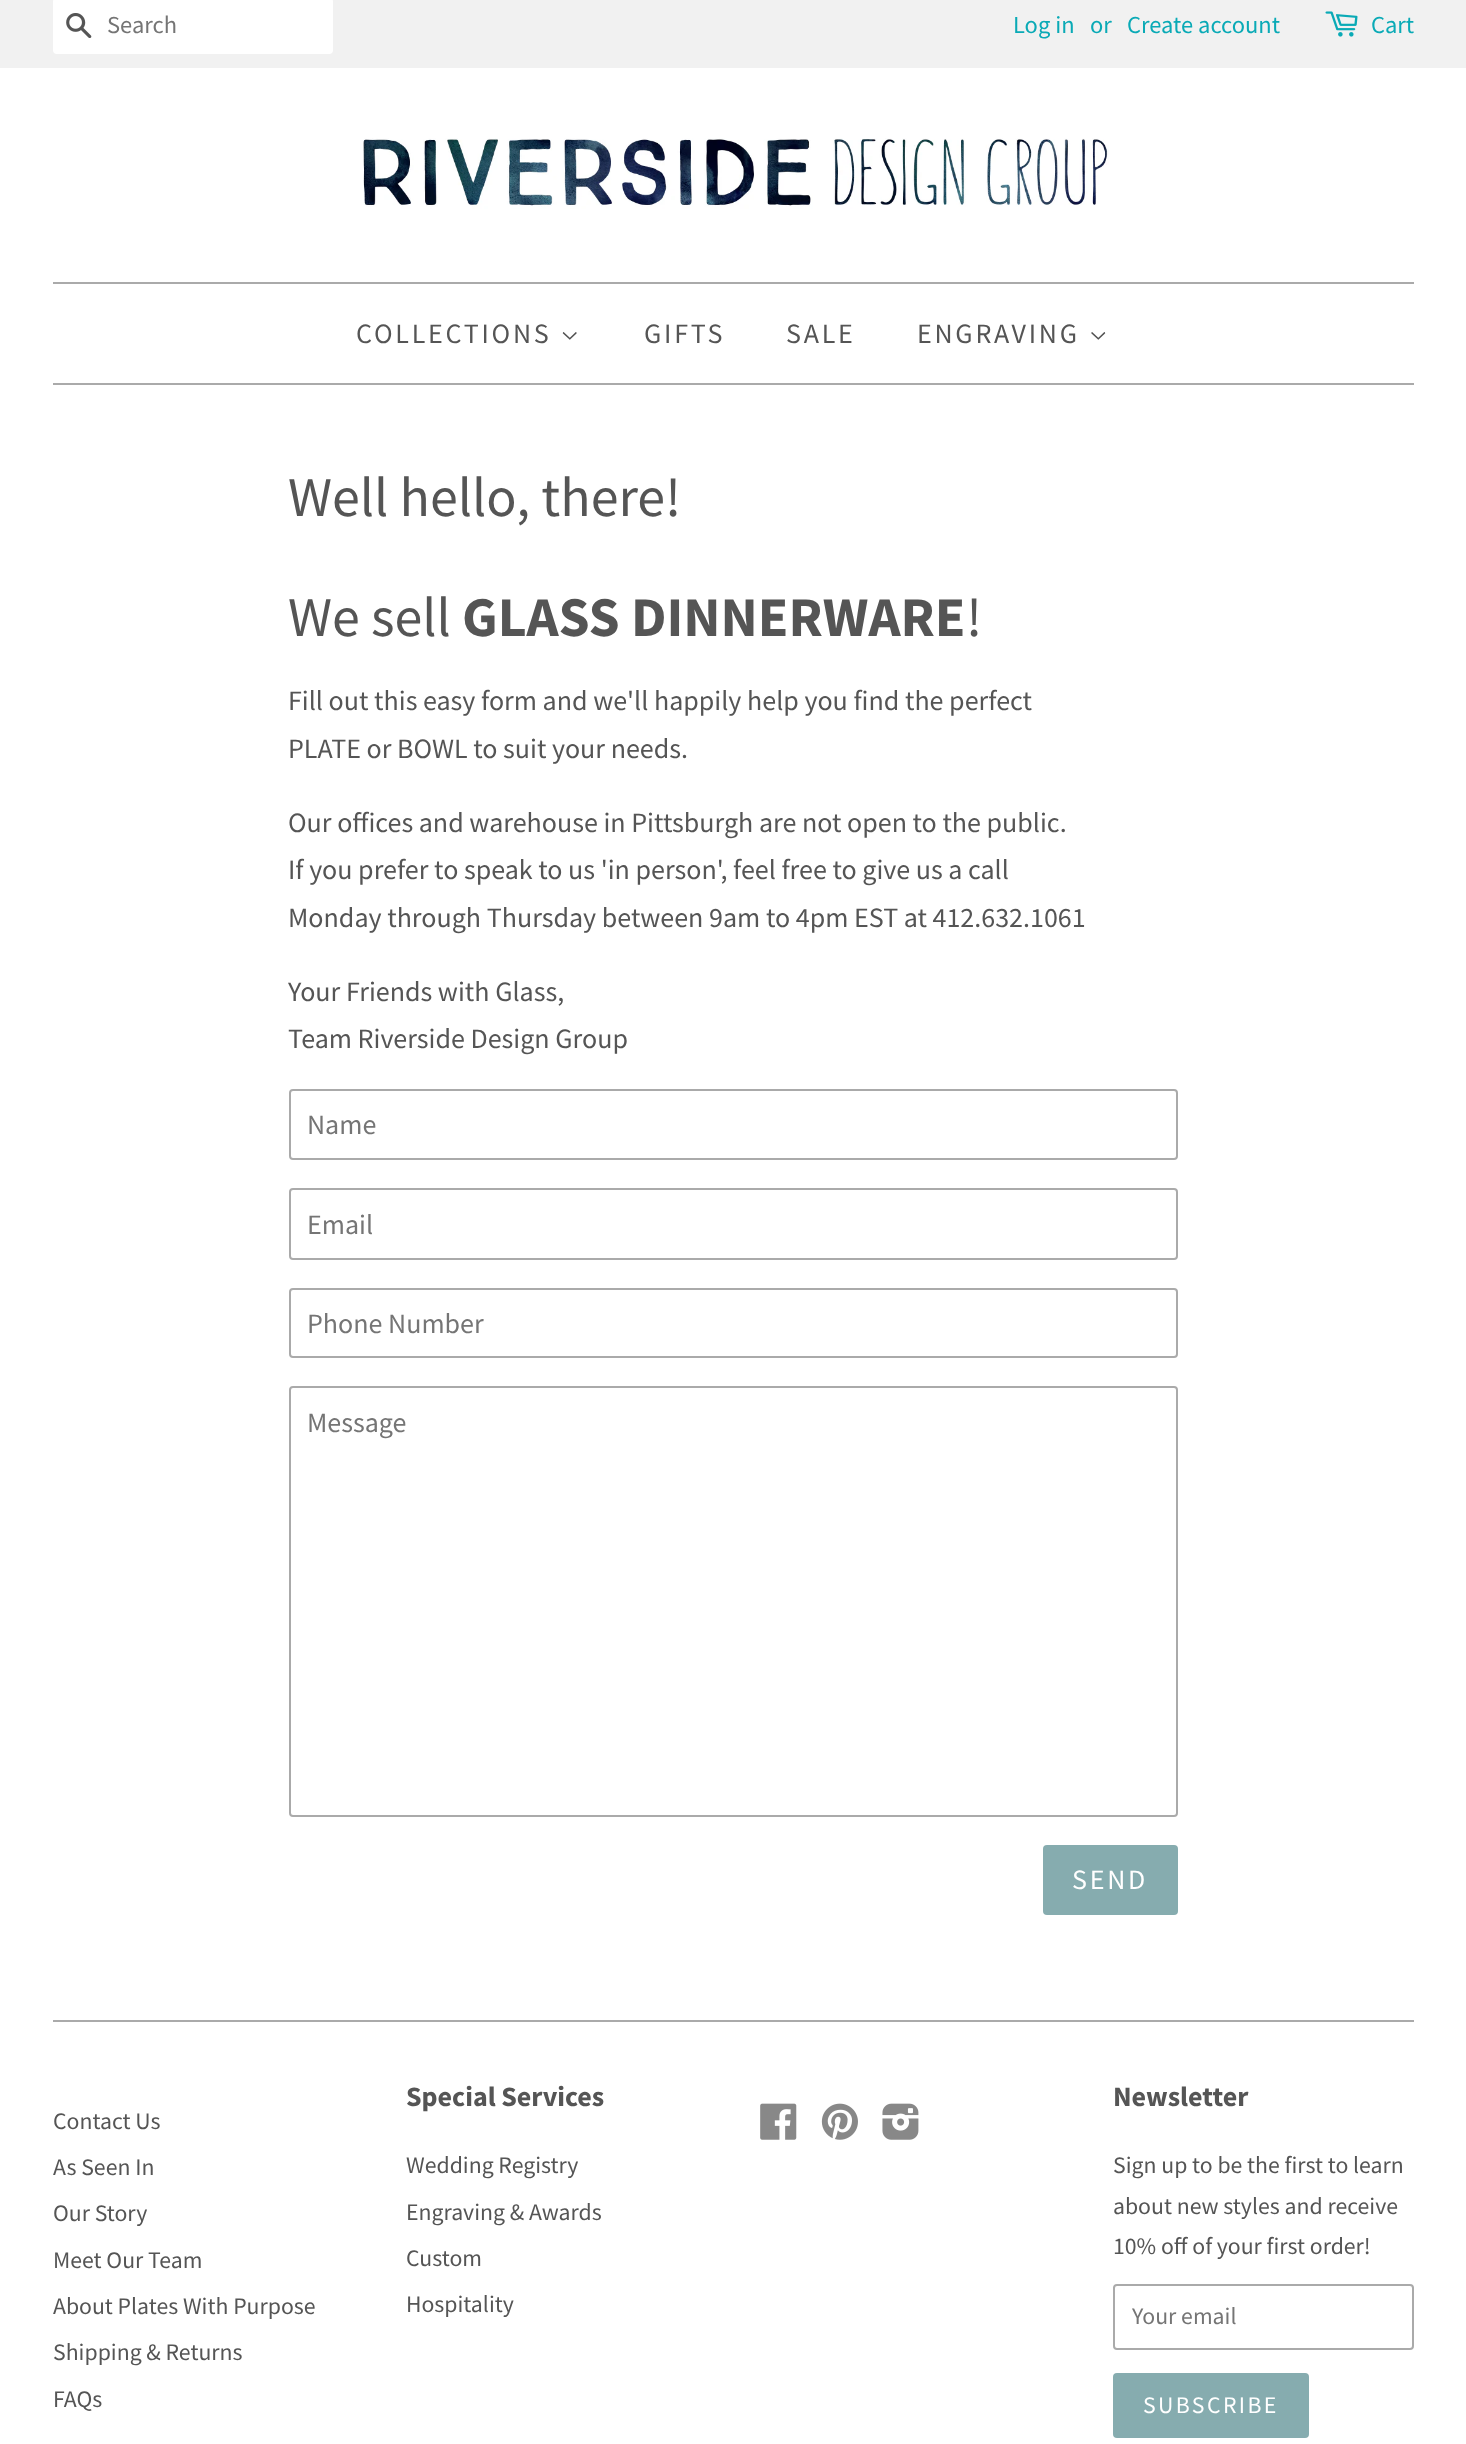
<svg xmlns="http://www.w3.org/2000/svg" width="1466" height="2444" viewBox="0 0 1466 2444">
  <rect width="100%" height="100%" fill="#fff"/>
  <path d="M0 0h1466v68H0z" fill="#f1f1f1"/>
  <rect x="53" y="-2" width="280" height="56" rx="4" fill="#fff"/>
  <image x="66" y="13" width="26" height="25" href="img/1.png"/>
  <image x="1325" y="11" width="33" height="26" href="img/2.png"/>
  <image x="363" y="138" width="746" height="71" href="img/3.png"/>
  <path d="M53 282h1361v2H53z" fill="#aaa"/>
  <path d="M53 383h1361v2H53z" fill="#aaa"/>
  <image x="562" y="332" width="15" height="8" href="img/4.png"/>
  <image x="1091" y="332" width="15" height="8" href="img/5.png"/>
  <rect x="290" y="1090" width="887" height="69" rx="3" fill="none" stroke="#aaa" stroke-width="2"/>
  <rect x="290" y="1189" width="887" height="70" rx="3" fill="none" stroke="#aaa" stroke-width="2"/>
  <rect x="290" y="1289" width="887" height="68" rx="3" fill="none" stroke="#aaa" stroke-width="2"/>
  <rect x="290" y="1387" width="887" height="429" rx="3" fill="none" stroke="#aaa" stroke-width="2"/>
  <rect x="1043" y="1845" width="135" height="70" rx="4" fill="#86acaf"/>
  <path d="M53 2020h1361v2H53z" fill="#aaa"/>
  <image x="760" y="2103" width="37" height="37" href="img/6.png"/>
  <image x="821" y="2103" width="37" height="37" href="img/7.png"/>
  <image x="882" y="2103" width="37" height="37" href="img/8.png"/>
  <rect x="1114" y="2285" width="299" height="64" rx="3" fill="none" stroke="#aaa" stroke-width="2"/>
  <rect x="1113" y="2373" width="196" height="65" rx="4" fill="#86acaf"/>
  <text x="107" y="33" font-family="Source Sans Pro" font-size="24.5" fill="#757575">Search</text>
  <g font-family="Source Sans Pro" font-size="24.5" fill="#0aaab6">
    <text x="1013" y="33">Log in</text>
    <text x="1090" y="33">or</text>
    <text x="1127" y="33">Create account</text>
    <text x="1371" y="33">Cart</text>
  </g>
  <g font-family="Source Sans Pro" font-size="28" letter-spacing="2.75" fill="#555">
    <text x="356" y="343">COLLECTIONS</text>
    <text x="644" y="343">GIFTS</text>
    <text x="786" y="343">SALE</text>
    <text x="917" y="343">ENGRAVING</text>
  </g>
  <g font-family="Source Sans Pro" font-size="56" fill="#555">
    <text x="288" y="516">Well hello, there!</text>
    <text x="288" y="636">We sell</text>
  </g>
  <text x="462" y="636" font-family="Source Sans Pro" font-size="56" font-weight="bold" fill="#555">GLASS DINNERWARE</text>
  <text x="966" y="636" font-family="Source Sans Pro" font-size="56" fill="#555">!</text>
  <g font-family="Source Sans Pro" font-size="28" fill="#555">
    <text x="288" y="710">Fill out this easy form and we'll happily help you find the perfect</text>
    <text x="288" y="758">PLATE or BOWL to suit your needs.</text>
    <text x="288" y="832">Our offices and warehouse in Pittsburgh are not open to the public.</text>
    <text x="288" y="879">If you prefer to speak to us 'in person', feel free to give us a call</text>
    <text x="288" y="927">Monday through Thursday between 9am to 4pm EST at 412.632.1061</text>
    <text x="288" y="1001">Your Friends with Glass,</text>
    <text x="288" y="1048">Team Riverside Design Group</text>
  </g>
  <g font-family="Source Sans Pro" font-size="28" fill="#757575">
    <text x="307" y="1134">Name</text>
    <text x="307" y="1234">Email</text>
    <text x="307" y="1333">Phone Number</text>
    <text x="307" y="1432">Message</text>
  </g>
  <text x="1072" y="1889" font-family="Source Sans Pro" font-size="28" letter-spacing="2.75" fill="#fff">SEND</text>
  <g font-family="Source Sans Pro" font-size="23.75" fill="#555">
    <text x="53" y="2129">Contact Us</text>
    <text x="53" y="2175">As Seen In</text>
    <text x="53" y="2221">Our Story</text>
    <text x="53" y="2268">Meet Our Team</text>
    <text x="53" y="2314">About Plates With Purpose</text>
    <text x="53" y="2360">Shipping &amp; Returns</text>
    <text x="53" y="2407">FAQs</text>
  </g>
  <text x="406" y="2106" font-family="Source Sans Pro" font-size="28" font-weight="bold" fill="#555">Special Services</text>
  <g font-family="Source Sans Pro" font-size="23.75" fill="#555">
    <text x="406" y="2173">Wedding Registry</text>
    <text x="406" y="2220">Engraving &amp; Awards</text>
    <text x="406" y="2266">Custom</text>
    <text x="406" y="2312">Hospitality</text>
  </g>
  <text x="1113" y="2106" font-family="Source Sans Pro" font-size="28" font-weight="bold" fill="#555">Newsletter</text>
  <g font-family="Source Sans Pro" font-size="23.75" fill="#555">
    <text x="1113" y="2173">Sign up to be the first to learn</text>
    <text x="1113" y="2214">about new styles and receive</text>
    <text x="1113" y="2254">10% off of your first order!</text>
  </g>
  <text x="1132" y="2324" font-family="Source Sans Pro" font-size="23.75" fill="#757575">Your email</text>
  <text x="1143" y="2413" font-family="Source Sans Pro" font-size="23.75" letter-spacing="2.4" fill="#fff">SUBSCRIBE</text>
</svg>
